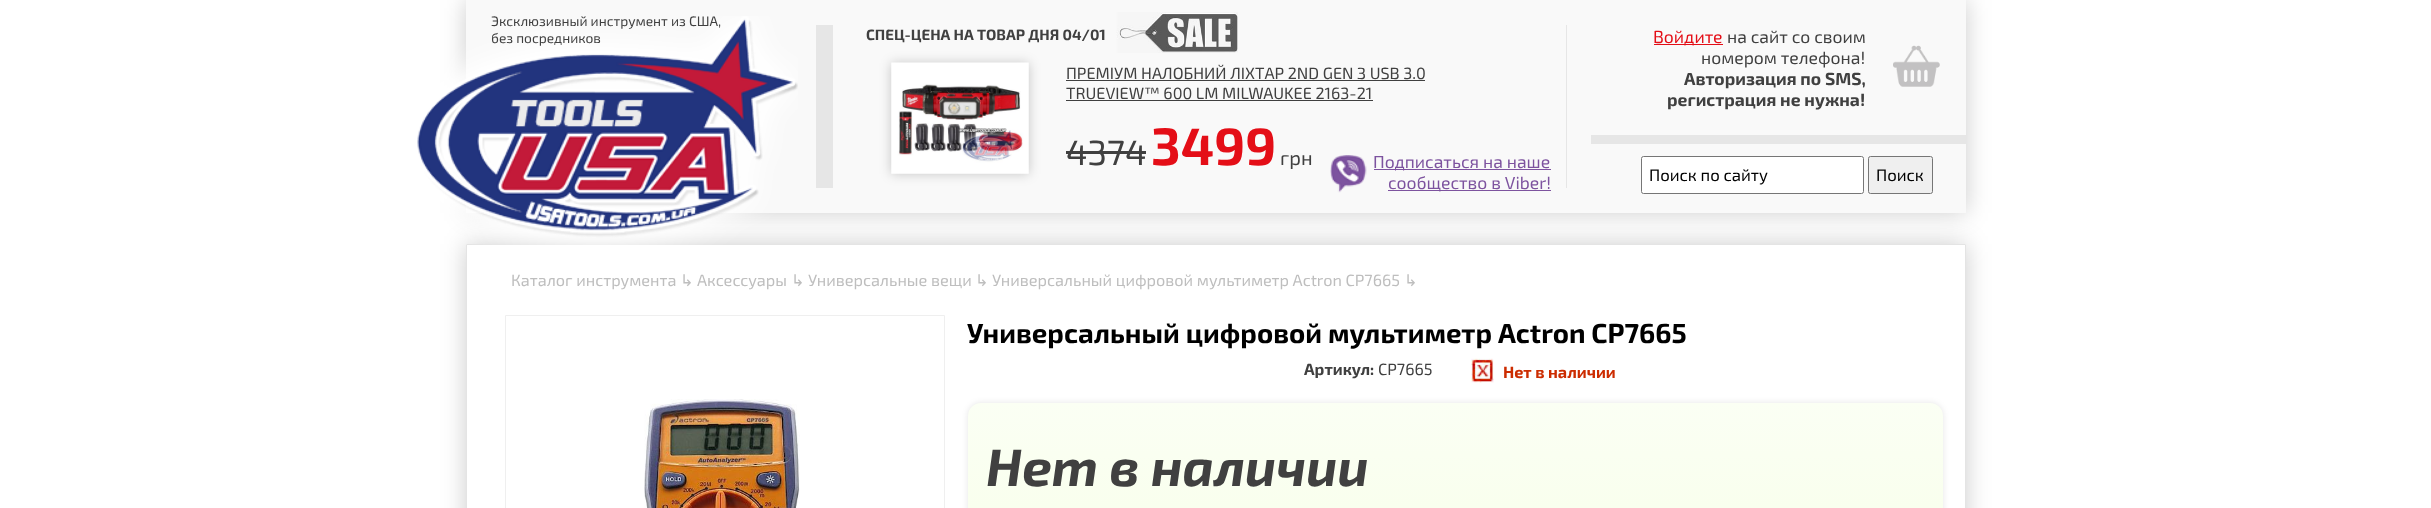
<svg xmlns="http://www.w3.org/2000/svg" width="2431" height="508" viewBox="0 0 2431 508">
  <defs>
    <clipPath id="clip1"><path d="M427 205H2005V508H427ZM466 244H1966V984H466Z" clip-rule="evenodd"/></clipPath>
    <linearGradient id="g1" gradientUnits="userSpaceOnUse" x1="1455" y1="402" x2="1455" y2="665"><stop offset="0" stop-color="#fbfff4"/><stop offset="1" stop-color="#f6ffe5"/></linearGradient>
  </defs>
  <rect width="100%" height="100%" fill="#fff"/>
  <g clip-path="url(#clip1)">
    <path d="M466 244h1500v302H466z" fill="#00000033" filter="blur(12.5px)"/>
  </g>
  <path d="M466.5 244.5h1499v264H466.5z" fill="none" stroke="#e4e4e4"/>
  <path d="M466 0h1500v213H466z" fill="#00000033" filter="blur(12.5px)"/>
  <path d="M466 0h1500v213H466z" fill="#f9f9f9"/>
  <image x="417" y="16" width="381" height="229" href="img/1.png"/>
  <image x="1116" y="12" width="122" height="41" href="img/2.png"/>
  <path d="M816 25h17v163H816z" fill="#e6e6e6"/>
  <path d="M1566 25h1v163H1566z" fill="#e6e6e6"/>
  <path d="M1654 44h69v1H1654z" fill="#e40e17"/>
  <path d="M891 63h138v111H891z" fill="#00000033" filter="blur(6px)"/>
  <image x="891" y="62" width="138" height="112" href="img/3.png"/>
  <path d="M1066 80h359v1H1066z" fill="#404040"/>
  <path d="M1066 100h307v1H1066z" fill="#404040"/>
  <image x="1893" y="45" width="47" height="42" href="img/4.png"/>
  <path d="M1066 151h80v3H1066z" fill="#404040"/>
  <path d="M1591 135h375v9H1591z" fill="#e6e6e6"/>
  <image x="1330" y="155" width="37" height="38" href="img/5.png"/>
  <path d="M1374 169h177v1H1374z" fill="#7d539f"/>
  <path d="M1388 190h163v1H1388z" fill="#7d539f"/>
  <rect x="1641.5" y="156.5" width="222" height="37" rx="2" fill="#fff" stroke="#767676"/>
  <rect x="1868.5" y="156.5" width="64" height="37" rx="2" fill="#efefef" stroke="#767676"/>
  <path d="M505.5 315.5h439v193H505.5z" fill="none" stroke="#efefef"/>
  <image x="644" y="399" width="156" height="109" href="img/6.png"/>
  <image x="1471" y="358" width="23" height="25" href="img/7.png"/>
  <rect x="968" y="403" width="975" height="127" rx="13" fill="#0000001a" filter="blur(3px)"/>
  <rect x="968" y="403" width="975" height="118" rx="13" fill="url(#g1)"/>
  <g font-family="'Exo 2'" font-size="13.75" fill="#404040">
    <text x="491" y="26">Эксклюзивный инструмент из США,</text>
    <text x="491" y="43">без посредников</text>
  </g>
  <text x="866" y="40" font-family="'Exo 2'" font-size="15" font-weight="bold" fill="#404040">СПЕЦ-ЦЕНА НА ТОВАР ДНЯ 04/01</text>
  <text x="1653" y="43" font-family="'Exo 2'" font-size="17.5" fill="#e40e17">Войдите</text>
  <g font-family="'Exo 2'" font-size="17.5" fill="#404040">
    <text x="1727" y="43">на сайт со своим</text>
    <text x="1701" y="64">номером телефона!</text>
  </g>
  <g font-family="'Exo 2'" font-size="17.5" font-weight="bold" fill="#404040">
    <text x="1684" y="85">Авторизация по SMS,</text>
    <text x="1667" y="106">регистрация не нужна!</text>
  </g>
  <g font-family="'Exo 2'" font-size="16.25" fill="#404040">
    <text x="1066" y="79">ПРЕМІУМ НАЛОБНИЙ ЛІХТАР 2ND GEN З USB 3.0</text>
    <text x="1066" y="99">TRUEVIEW™ 600 LM MILWAUKEE 2163-21</text>
  </g>
  <text x="1066" y="165" font-family="'Exo 2'" font-size="35" fill="#404040">4374</text>
  <text x="1151" y="165" font-family="'Exo 2'" font-size="52.5" font-weight="bold" fill="#e40e17">3499</text>
  <text x="1280" y="165" font-family="'Exo 2'" font-size="20" fill="#404040">грн</text>
  <g font-family="'Exo 2'" font-size="17.5" fill="#7d539f">
    <text x="1373" y="168">Подписаться на наше</text>
    <text x="1388" y="189">сообщество в Viber!</text>
  </g>
  <g font-family="'Exo 2'" font-size="16.75" fill="#000">
    <text x="1649" y="181">Поиск по сайту</text>
    <text x="1876" y="181">Поиск</text>
  </g>
  <text x="511" y="286" font-family="'Exo 2'" font-size="16.25" fill="#bebebe">Каталог инструмента</text>
  <text x="680" y="286" font-family="DejaVu Sans" font-size="16.25" fill="#bebebe">↳</text>
  <text x="697" y="286" font-family="'Exo 2'" font-size="16.25" fill="#bebebe">Аксессуары</text>
  <text x="791" y="286" font-family="DejaVu Sans" font-size="16.25" fill="#bebebe">↳</text>
  <text x="808" y="286" font-family="'Exo 2'" font-size="16.25" fill="#bebebe">Универсальные вещи</text>
  <text x="975" y="286" font-family="DejaVu Sans" font-size="16.25" fill="#bebebe">↳</text>
  <text x="992" y="286" font-family="'Exo 2'" font-size="16.25" fill="#bebebe">Универсальный цифровой мультиметр Actron CP7665</text>
  <text x="1404" y="286" font-family="DejaVu Sans" font-size="16.25" fill="#bebebe">↳</text>
  <text x="967" y="343" font-family="'Exo 2'" font-size="27.5" font-weight="bold" fill="#000">Универсальный цифровой мультиметр Actron CP7665</text>
  <text x="1304" y="375" font-family="'Exo 2'" font-size="16.25" font-weight="bold" fill="#404040">Артикул:</text>
  <text x="1378" y="375" font-family="'Exo 2'" font-size="16.25" fill="#404040">CP7665</text>
  <text x="1503" y="378" font-family="'Exo 2'" font-size="16.25" font-weight="bold" fill="#cc2c00">Нет в наличии</text>
  <text x="986" y="486" font-family="'Exo 2'" font-size="52.5" font-weight="bold" font-style="italic" fill="#404040">Нет в наличии</text>
</svg>
